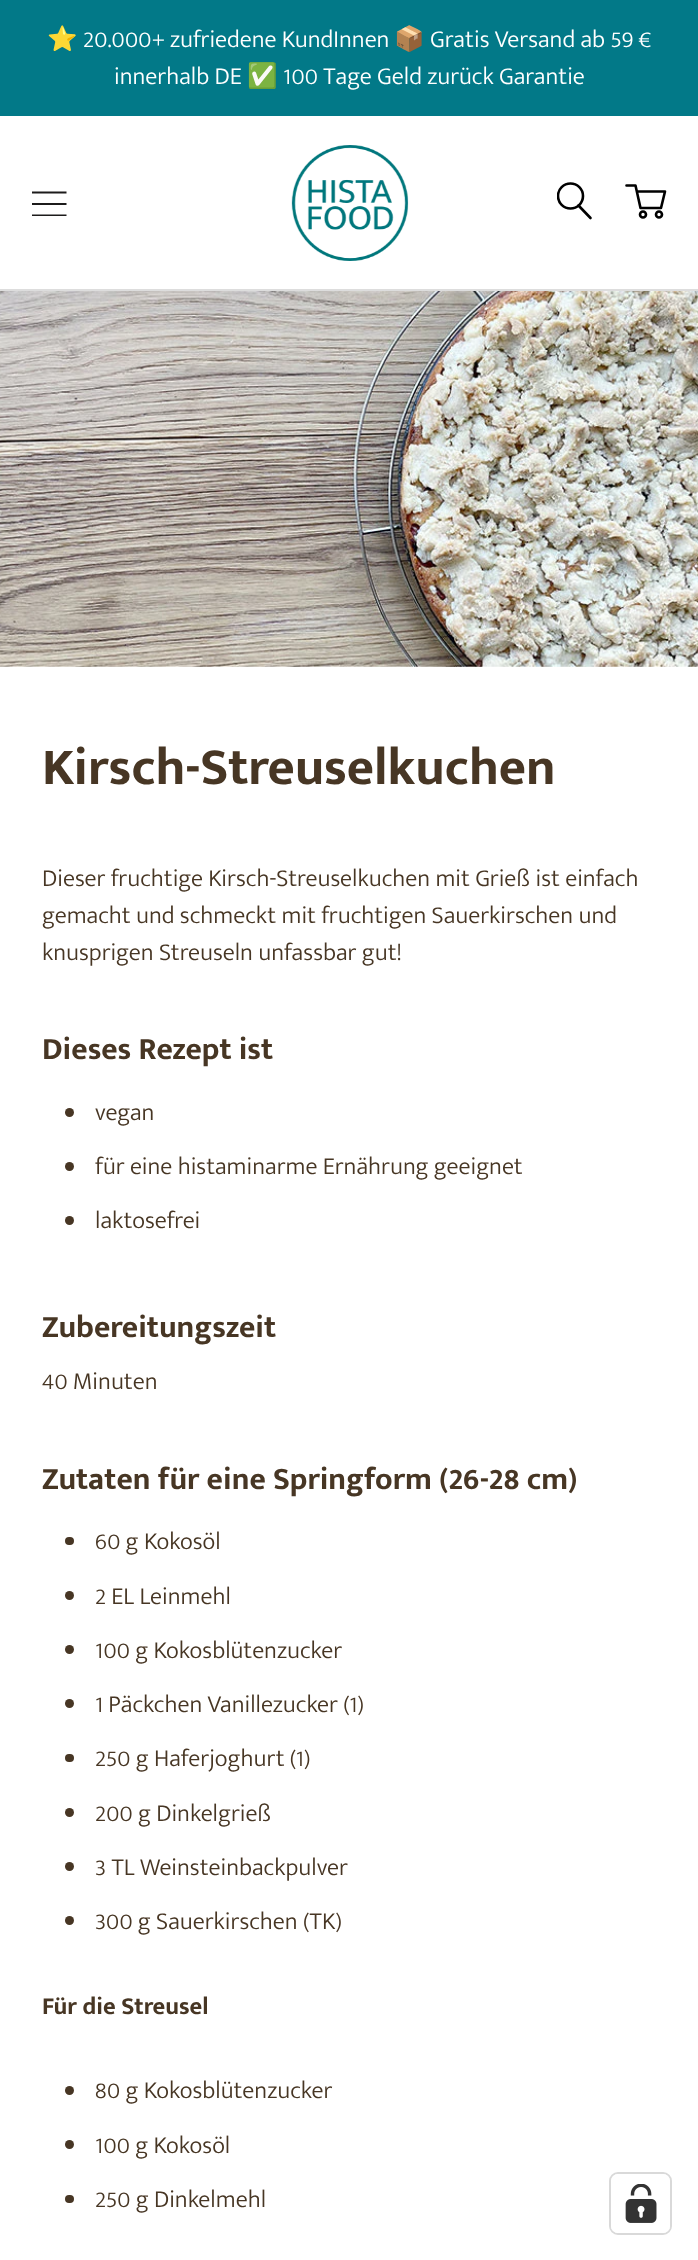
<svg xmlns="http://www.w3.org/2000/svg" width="698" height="2260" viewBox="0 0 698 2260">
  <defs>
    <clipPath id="clip1"><path d="M32 191h35v26H32z"/></clipPath>
    <clipPath id="clip2"><path d="M557 182h36v39H557z"/></clipPath>
  </defs>
  <rect width="100%" height="100%" fill="#fff"/>
  <path d="M0 0h698v116H0z" fill="#027988"/>
  <path d="M0 289h698v2H0z" fill="#ddd"/>
  <g clip-path="url(#clip1)">
    <path d="M31.5 216V214.5H66.5V216ZM31.5 203H66.5V205H31.5ZM31.5 191.5H66.5V193.5H31.5Z" fill="#1c1b1b"/>
  </g>
  <image x="291" y="145" width="118" height="116" href="img/1.png"/>
  <path d="M578.5 205.5L590.5 218" fill="none" stroke="#000" stroke-width="2.6" stroke-linecap="round" stroke-linejoin="round"/>
  <g clip-path="url(#clip2)">
    <circle cx="570.5" cy="196" r="12.5" fill="none" stroke="#000" stroke-width="2.6"/>
  </g>
  <path d="M626.5 185.5H635.5L640.5 208H661L665 191.5H637.5" fill="none" stroke="#000" stroke-width="2.6" stroke-linecap="round" stroke-linejoin="round"/>
  <circle cx="643" cy="214.5" r="3" fill="none" stroke="#000" stroke-width="2.6"/>
  <circle cx="659" cy="214.5" r="3" fill="none" stroke="#000" stroke-width="2.6"/>
  <image x="0" y="291" width="698" height="376" href="img/2.png"/>
  <circle cx="69.5" cy="1112.5" r="4.5" fill="#473624"/>
  <circle cx="69.5" cy="1166.5" r="4.5" fill="#473624"/>
  <circle cx="69.5" cy="1220.5" r="4.5" fill="#473624"/>
  <rect x="65" y="1537" width="9" height="8" rx="4" fill="#473624"/>
  <circle cx="69.5" cy="1595.5" r="4.5" fill="#473624"/>
  <circle cx="69.5" cy="1649.5" r="4.5" fill="#473624"/>
  <circle cx="69.5" cy="1703.5" r="4.5" fill="#473624"/>
  <rect x="65" y="1754" width="9" height="8" rx="4" fill="#473624"/>
  <circle cx="69.5" cy="1812.5" r="4.5" fill="#473624"/>
  <circle cx="69.5" cy="1866.5" r="4.5" fill="#473624"/>
  <circle cx="69.5" cy="1920.5" r="4.5" fill="#473624"/>
  <circle cx="69.5" cy="2090.5" r="4.5" fill="#473624"/>
  <circle cx="69.5" cy="2144.5" r="4.5" fill="#473624"/>
  <rect x="65" y="2195" width="9" height="8" rx="4" fill="#473624"/>
  <rect x="610" y="2173" width="61" height="61" rx="8" fill="none" stroke="#d9d9d9" stroke-width="2"/>
  <rect x="611" y="2174" width="59" height="59" rx="7" fill="#fff"/>
  <image x="625" y="2184" width="32" height="39" href="img/3.png"/>
  <text x="47" y="47" font-family="Noto Color Emoji" font-size="24.5" fill="#fff">⭐️</text>
  <text x="83" y="47" font-family="Mukta Mahee" font-size="24.5" font-weight="300" fill="#fff">20.000+ zufriedene KundInnen</text>
  <text x="394" y="47" font-family="Noto Color Emoji" font-size="24.5" fill="#fff">📦</text>
  <g font-family="Mukta Mahee" font-size="24.5" font-weight="300" fill="#fff">
    <text x="430" y="47">Gratis Versand ab 59 €</text>
    <text x="114" y="84">innerhalb DE</text>
  </g>
  <text x="247" y="84" font-family="Noto Color Emoji" font-size="24.5" fill="#fff">✅</text>
  <text x="283" y="84" font-family="Mukta Mahee" font-size="24.5" font-weight="300" fill="#fff">100 Tage Geld zurück Garantie</text>
  <text x="42" y="784" font-family="Mukta Mahee" font-size="52.5" font-weight="bold" fill="#473624">Kirsch-Streuselkuchen</text>
  <g font-family="Mukta Mahee" font-size="24.5" font-weight="300" fill="#473624">
    <text x="42" y="886">Dieser fruchtige Kirsch-Streuselkuchen mit Grieß ist einfach</text>
    <text x="42" y="923">gemacht und schmeckt mit fruchtigen Sauerkirschen und</text>
    <text x="42" y="960">knusprigen Streuseln unfassbar gut!</text>
  </g>
  <text x="42" y="1059" font-family="Mukta Mahee" font-size="31.5" font-weight="bold" fill="#473624">Dieses Rezept ist</text>
  <g font-family="Mukta Mahee" font-size="24.5" font-weight="300" fill="#473624">
    <text x="95" y="1120">vegan</text>
    <text x="95" y="1174">für eine histaminarme Ernährung geeignet</text>
    <text x="95" y="1228">laktosefrei</text>
  </g>
  <text x="42" y="1337" font-family="Mukta Mahee" font-size="31.5" font-weight="bold" fill="#473624">Zubereitungszeit</text>
  <text x="42" y="1389" font-family="Mukta Mahee" font-size="24.5" font-weight="300" fill="#473624">40 Minuten</text>
  <text x="42" y="1489" font-family="Mukta Mahee" font-size="31.5" font-weight="bold" fill="#473624">Zutaten für eine Springform (26-28 cm)</text>
  <g font-family="Mukta Mahee" font-size="24.5" font-weight="300" fill="#473624">
    <text x="95" y="1549">60 g Kokosöl</text>
    <text x="95" y="1604">2 EL Leinmehl</text>
    <text x="95" y="1658">100 g Kokosblütenzucker</text>
    <text x="95" y="1712">1 Päckchen Vanillezucker (1)</text>
    <text x="95" y="1766">250 g Haferjoghurt (1)</text>
    <text x="95" y="1821">200 g Dinkelgrieß</text>
    <text x="95" y="1875">3 TL Weinsteinbackpulver</text>
    <text x="95" y="1929">300 g Sauerkirschen (TK)</text>
  </g>
  <text x="42" y="2014" font-family="Mukta Mahee" font-size="24.5" font-weight="bold" fill="#473624">Für die Streusel</text>
  <g font-family="Mukta Mahee" font-size="24.5" font-weight="300" fill="#473624">
    <text x="95" y="2098">80 g Kokosblütenzucker</text>
    <text x="95" y="2153">100 g Kokosöl</text>
    <text x="95" y="2207">250 g Dinkelmehl</text>
  </g>
</svg>
